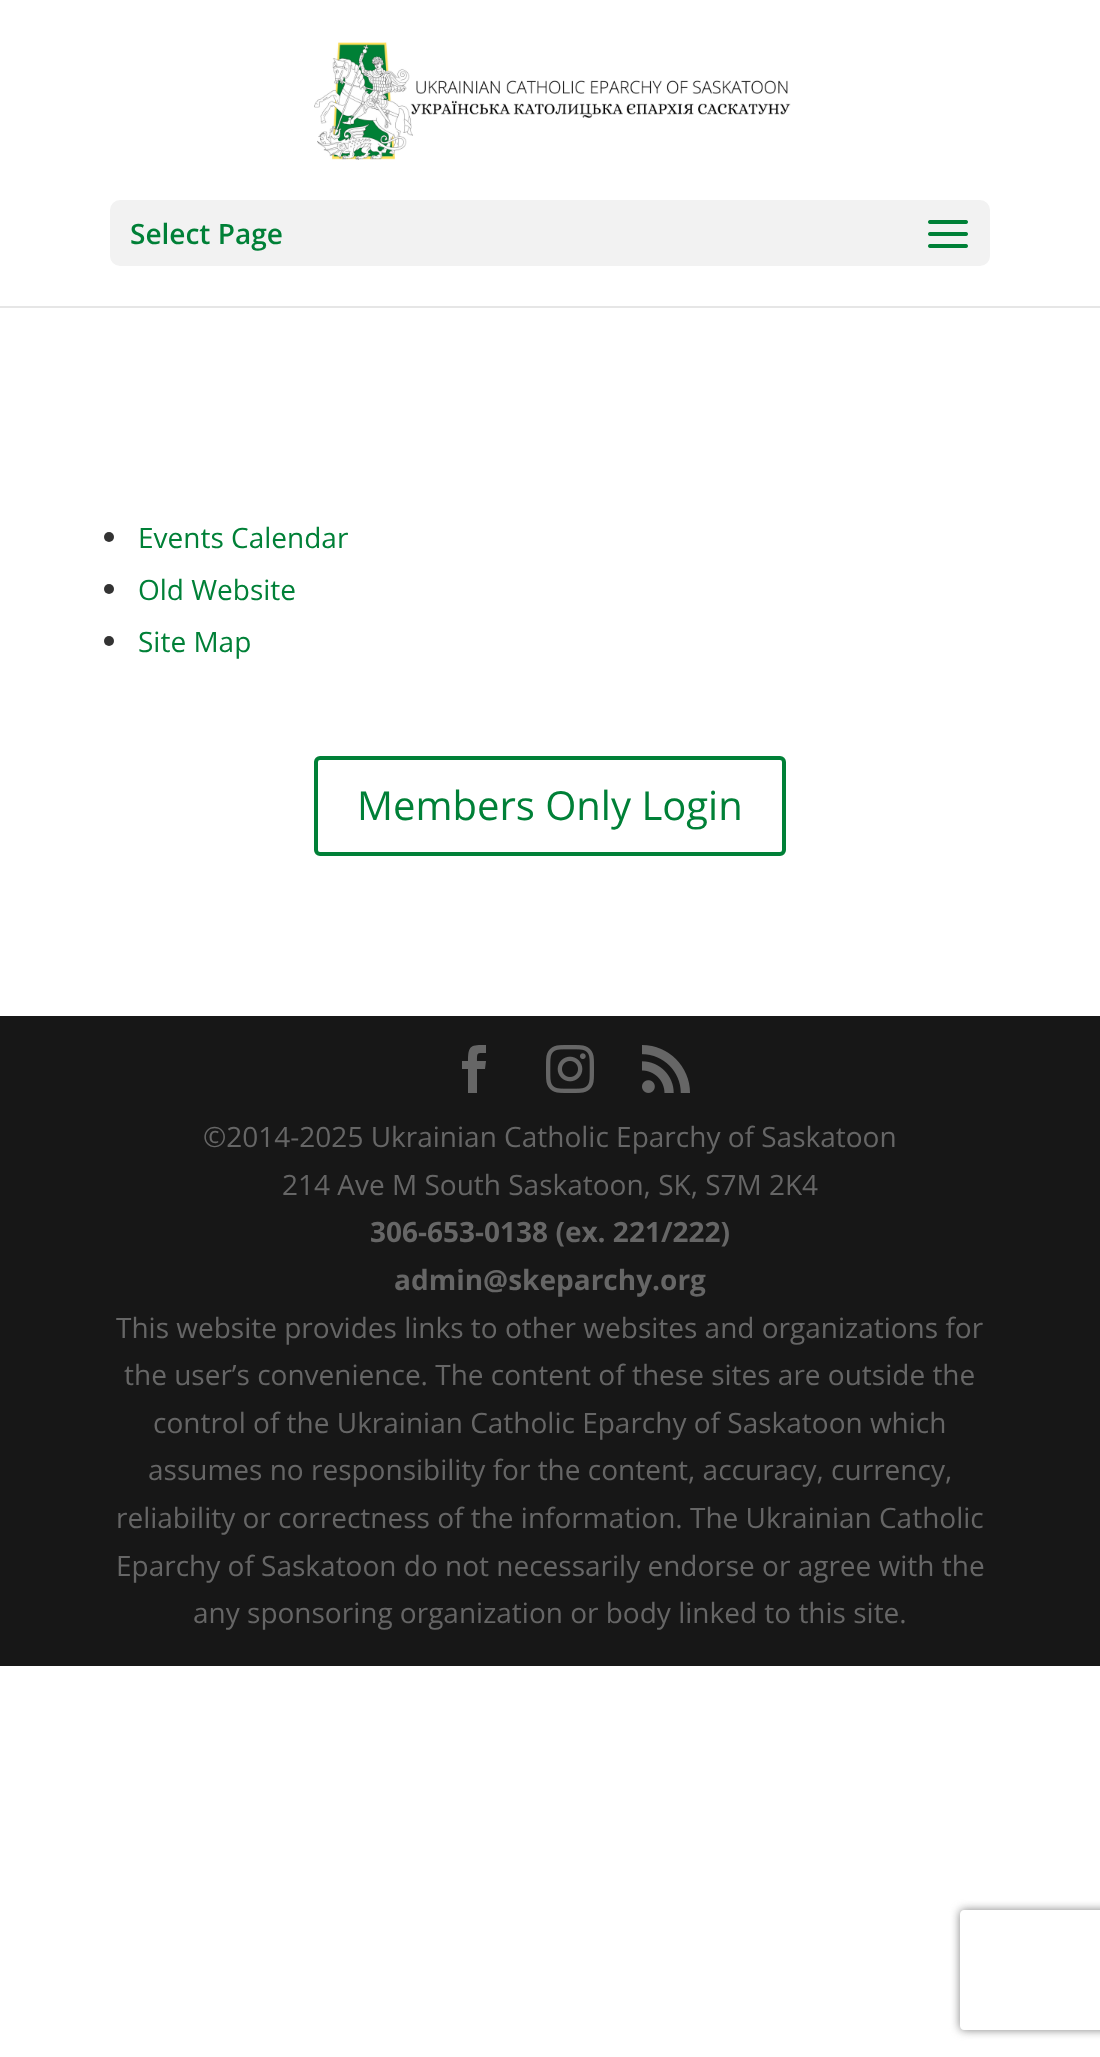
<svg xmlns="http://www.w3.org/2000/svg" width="1100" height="2057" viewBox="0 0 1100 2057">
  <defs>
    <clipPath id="clip1"><path d="M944 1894H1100V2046H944ZM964 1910H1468C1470 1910 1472 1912 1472 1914V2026C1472 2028 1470 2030 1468 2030H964C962 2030 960 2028 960 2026V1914C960 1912 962 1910 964 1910Z" clip-rule="evenodd"/></clipPath>
  </defs>
  <rect width="100%" height="100%" fill="#fff"/>
  <path d="M0 306h1100v2H0z" fill="#e6e6e6"/>
  <image x="314" y="42" width="477" height="118" href="img/1.png"/>
  <rect x="110" y="200" width="880" height="66" rx="10" fill="#f2f2f2"/>
  <image x="928" y="220" width="40" height="28" href="img/2.png"/>
  <circle cx="109" cy="537" r="5" fill="#333"/>
  <circle cx="109" cy="589" r="5" fill="#333"/>
  <circle cx="109" cy="641" r="5" fill="#333"/>
  <rect x="316" y="758" width="468" height="96" rx="4" fill="none" stroke="#008037" stroke-width="4"/>
  <path d="M0 1016h1100v650H0z" fill="#171717"/>
  <path d="M468 1093H477V1069H485L486 1061H477C477 1052 477 1053 486 1053V1045C471 1045 468 1045 468 1061H462V1069H468Z" fill="#666"/>
  <image x="546" y="1045" width="48" height="48" href="img/3.png"/>
  <image x="642" y="1045" width="48" height="48" href="img/4.png"/>
  <g clip-path="url(#clip1)">
    <rect x="960" y="1910" width="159" height="120" rx="4" fill="#808080" filter="blur(5px)"/>
  </g>
  <text x="130" y="244" font-family="Open Sans" font-size="28" font-weight="600" fill="#008037">Select Page</text>
  <g font-family="Open Sans" font-size="28" fill="#008037">
    <text x="138" y="548">Events Calendar</text>
    <text x="138" y="600">Old Website</text>
    <text x="138" y="652">Site Map</text>
  </g>
  <text x="357" y="820" font-family="Open Sans" font-size="40" fill="#008037">Members Only Login</text>
  <g font-family="Open Sans" font-size="28" fill="#666">
    <text x="203" y="1147">©2014-2025 Ukrainian Catholic Eparchy of Saskatoon</text>
    <text x="282" y="1195">214 Ave M South Saskatoon, SK, S7M 2K4</text>
  </g>
  <g font-family="Open Sans" font-size="28" font-weight="bold" fill="#666">
    <text x="370" y="1242">306-653-0138 (ex. 221/222)</text>
    <text x="394" y="1290">admin@skeparchy.org</text>
  </g>
  <g font-family="Open Sans" font-size="28" fill="#666">
    <text x="116" y="1338">This website provides links to other websites and organizations for</text>
    <text x="124" y="1385">the user’s convenience. The content of these sites are outside the</text>
    <text x="153" y="1433">control of the Ukrainian Catholic Eparchy of Saskatoon which</text>
    <text x="148" y="1480">assumes no responsibility for the content, accuracy, currency,</text>
    <text x="116" y="1528">reliability or correctness of the information. The Ukrainian Catholic</text>
    <text x="116" y="1576">Eparchy of Saskatoon do not necessarily endorse or agree with the</text>
    <text x="193" y="1623">any sponsoring organization or body linked to this site.</text>
  </g>
</svg>
